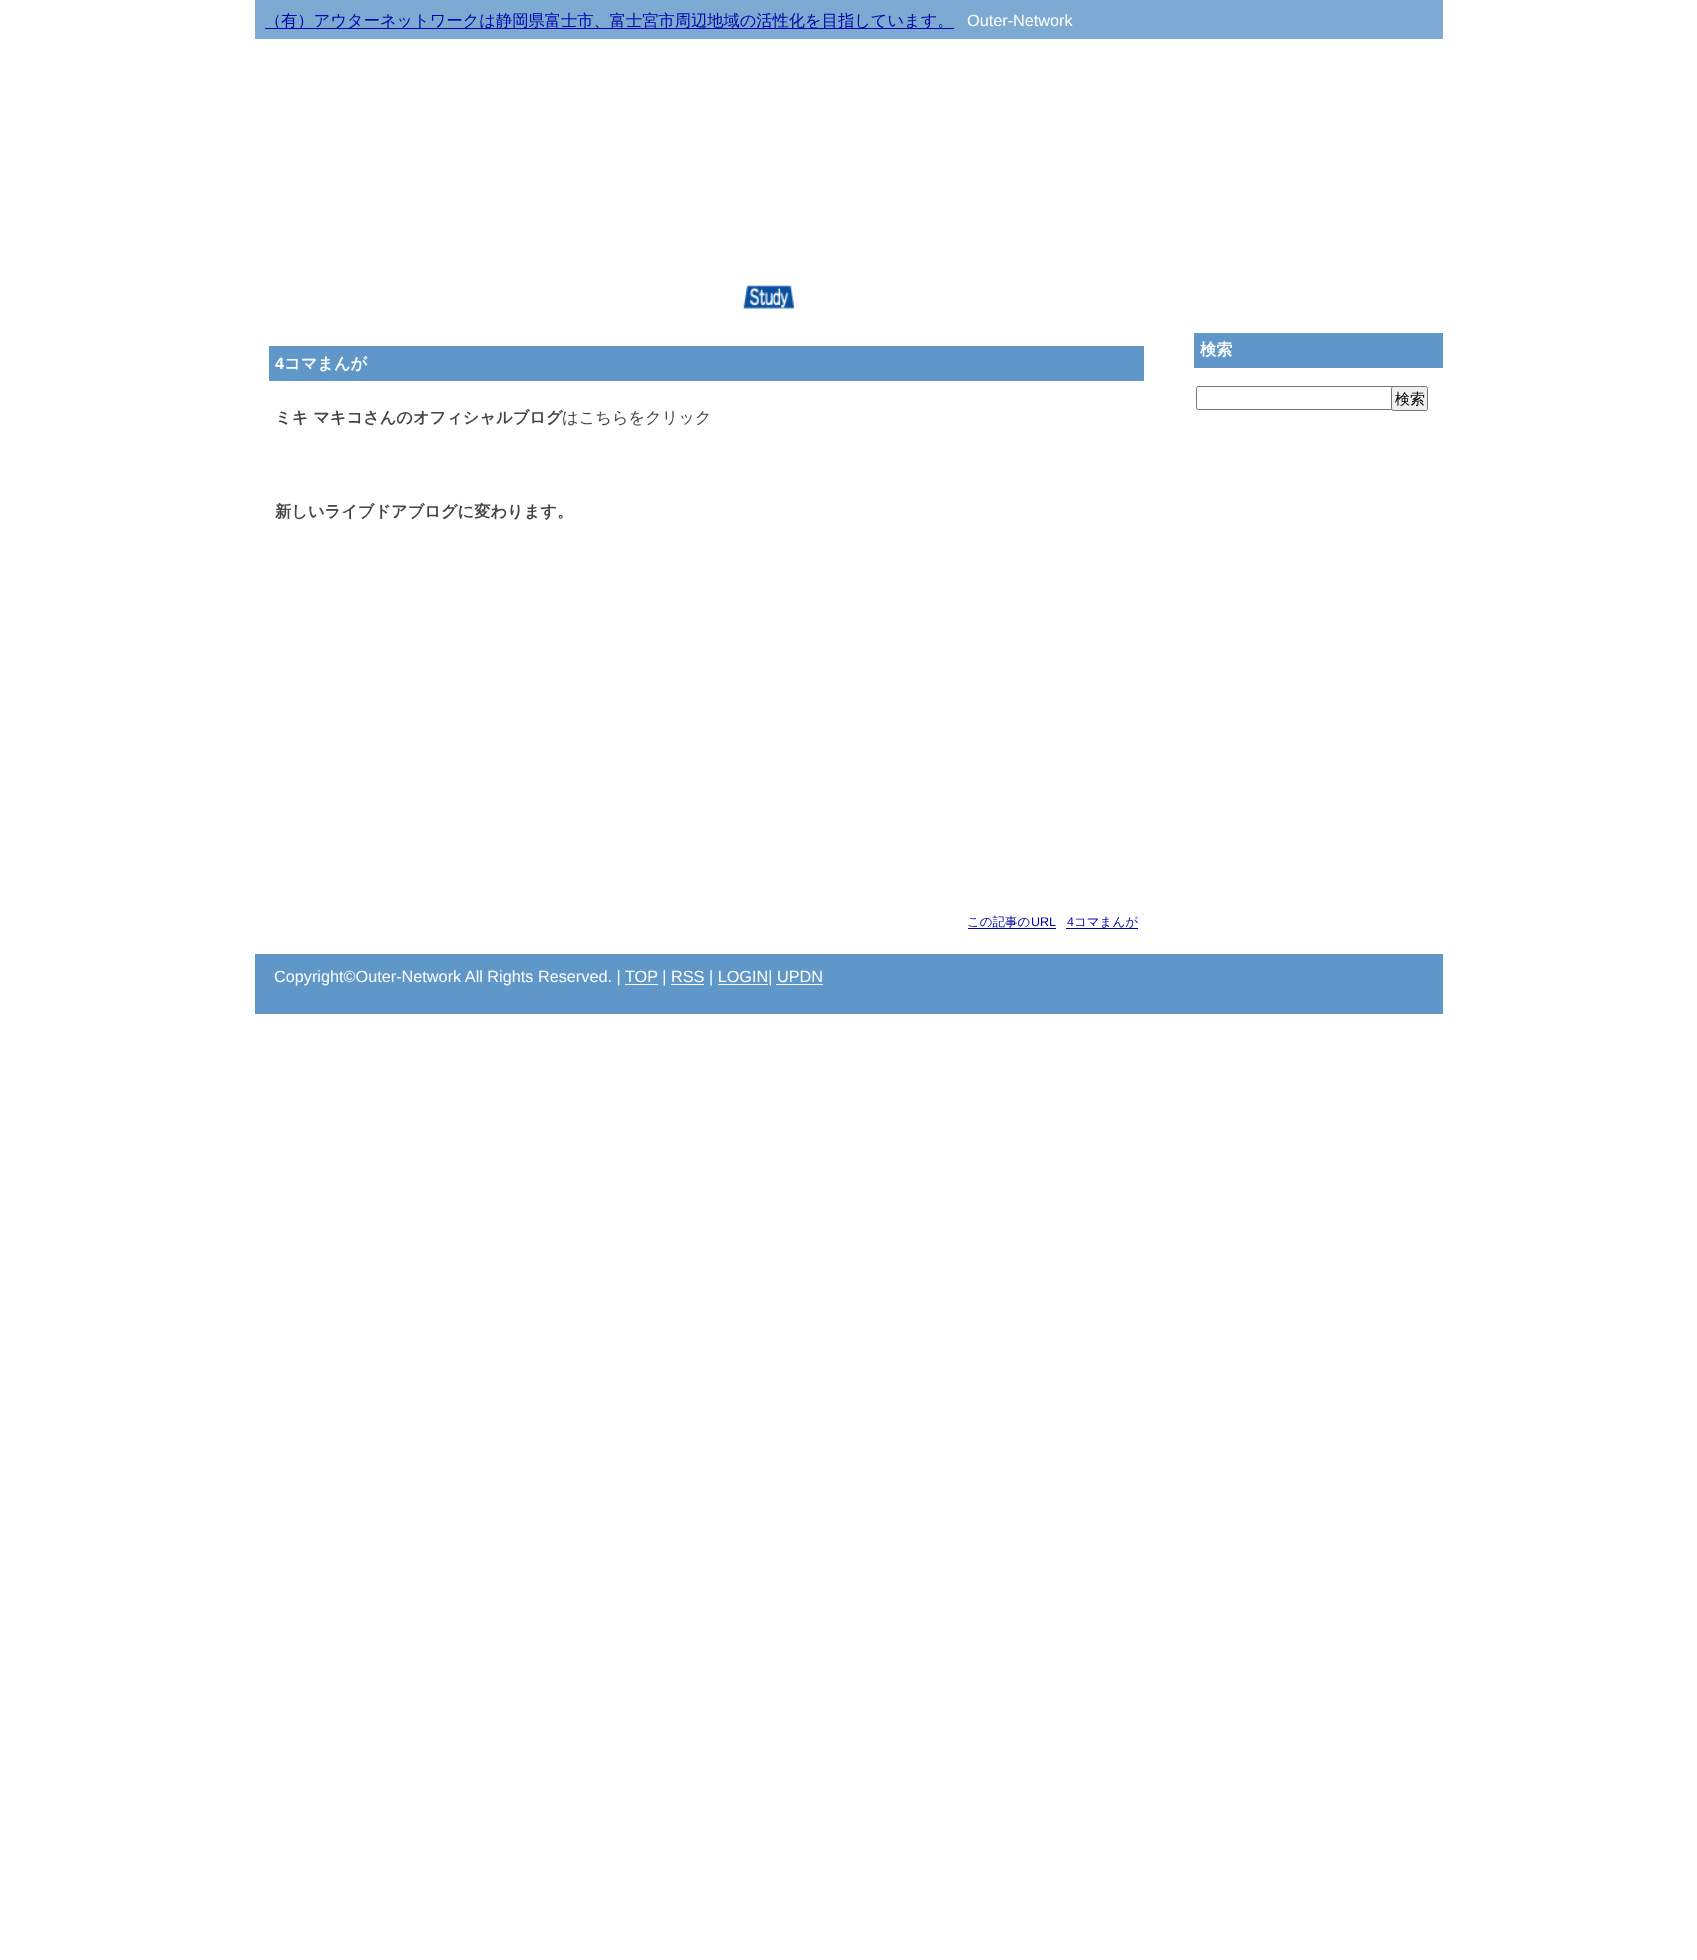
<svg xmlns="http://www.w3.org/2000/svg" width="1697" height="1960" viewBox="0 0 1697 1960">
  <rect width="100%" height="100%" fill="#fff"/>
  <path d="M255 0h1188v39H255z" fill="#7caad2"/>
  <path d="M265 28h689v1H265z" fill="#00a"/>
  <image x="743" y="285" width="52" height="24" href="img/1.png"/>
  <path d="M269 346h875v35H269z" fill="#5f97c8"/>
  <path d="M968 928h88v1H968z" fill="#00a"/>
  <path d="M1066 928h72v1H1066z" fill="#00a"/>
  <path d="M1194 333h249v35H1194z" fill="#5f97c8"/>
  <rect x="1196.5" y="386.5" width="201" height="23" rx="2" fill="none" stroke="#767676"/>
  <rect x="1391.5" y="386.5" width="36" height="24" rx="2" fill="#efefef" stroke="#767676"/>
  <path d="M255 954h1188v60H255z" fill="#5f97c8"/>
  <path d="M625 984h33v1H625z" fill="#fff"/>
  <path d="M671 984h33v1H671z" fill="#fff"/>
  <path d="M718 984h50v1H718z" fill="#fff"/>
  <path d="M776 984h47v1H776z" fill="#fff"/>
  <text x="265" y="26" font-family="WenQuanYi Zen Hei" font-size="16.25" font-weight="500" fill="#00a">（有）アウターネットワークは静岡県富士市、富士宮市周辺地域の活性化を目指しています。</text>
  <text x="967" y="26" font-family="Liberation Sans" font-size="16.25" fill="#fff">Outer-Network</text>
  <text x="275" y="369" font-family="Liberation Sans" font-size="16.25" font-weight="bold" fill="#fff">4</text>
  <text x="284" y="369" font-family="WenQuanYi Zen Hei" font-size="16.25" font-weight="bold" fill="#fff">コマまんが</text>
  <text x="275" y="423" font-family="WenQuanYi Zen Hei" font-size="16.25" font-weight="bold" fill="#444">ミキ マキコさんのオフィシャルブログ</text>
  <text x="562" y="423" font-family="WenQuanYi Zen Hei" font-size="16.25" font-weight="500" fill="#444">はこちらをクリック</text>
  <text x="275" y="517" font-family="WenQuanYi Zen Hei" font-size="16.25" font-weight="bold" fill="#444">新しいライブドアブログに変わります。</text>
  <text x="967" y="926" font-family="WenQuanYi Zen Hei" font-size="12.5" font-weight="500" fill="#00a">この記事の</text>
  <g font-family="Liberation Sans" font-size="12.5" fill="#00a">
    <text x="1031" y="926">URL</text>
    <text x="1067" y="926">4</text>
  </g>
  <text x="1074" y="926" font-family="WenQuanYi Zen Hei" font-size="12.5" font-weight="500" fill="#00a">コマまんが</text>
  <text x="1200" y="355" font-family="WenQuanYi Zen Hei" font-size="16.25" font-weight="bold" fill="#fff">検索</text>
  <text x="1395" y="404" font-family="WenQuanYi Zen Hei" font-size="15" font-weight="500" fill="#000">検索</text>
  <text x="274" y="982" font-family="Liberation Sans" font-size="16.25" fill="#fff">Copyright©Outer-Network All Rights Reserved. | TOP | RSS | LOGIN| UPDN</text>
</svg>
